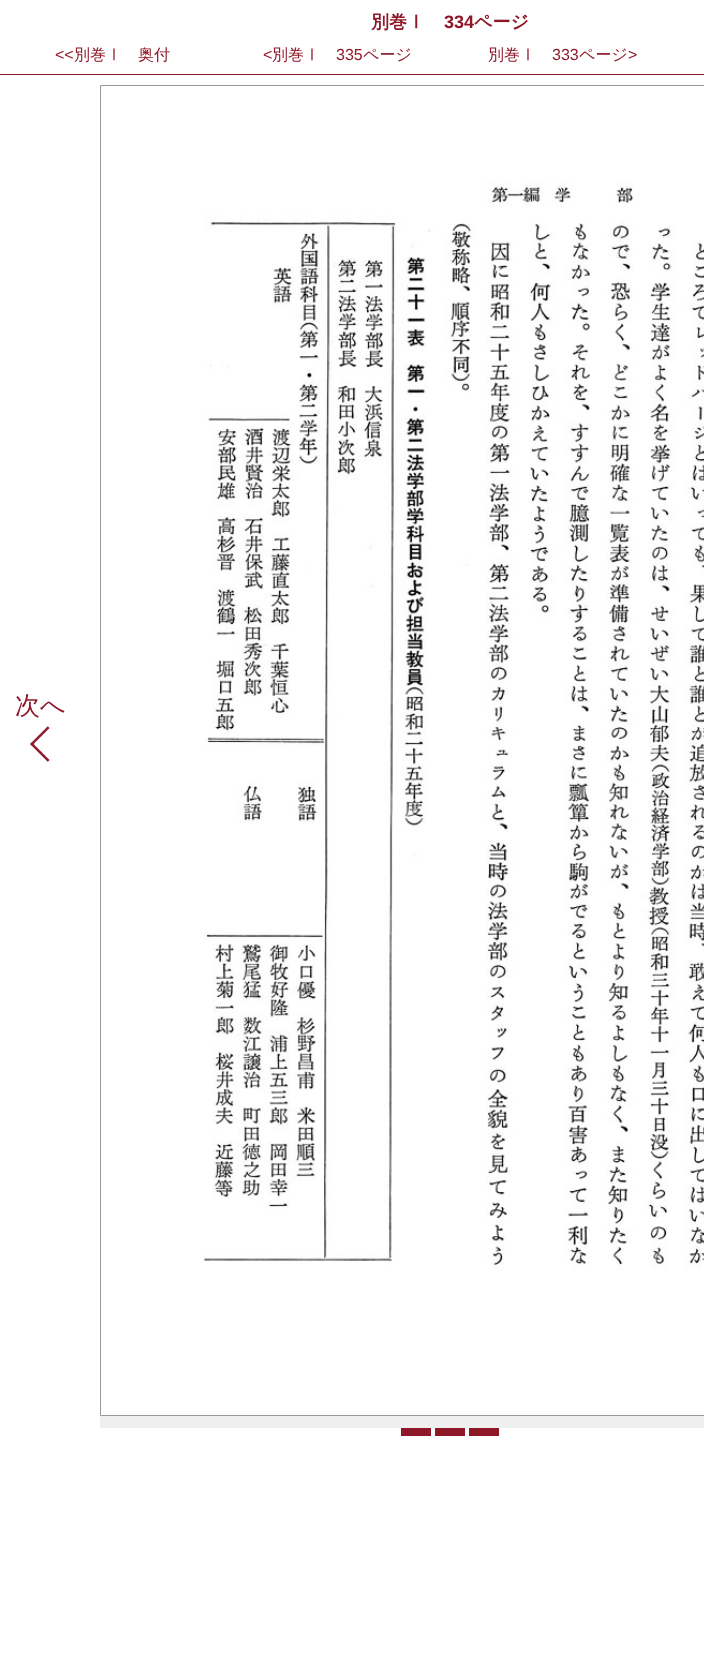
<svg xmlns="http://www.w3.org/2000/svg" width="704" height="1678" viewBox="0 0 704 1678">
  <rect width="100%" height="100%" fill="#fff"/>
  <path d="M0 74h704v1H0z" fill="#8e1728"/>
  <image x="30" y="726" width="20" height="36" href="img/1.png"/>
  <path d="M100 1416h604v12H100z" fill="#efefef"/>
  <path d="M100.5 85.5h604v1330H100.5z" fill="none" stroke="#999"/>
  <image x="101" y="86" width="603" height="1329" href="img/2.png"/>
  <path d="M401 1428h30v8H401z" fill="#8e1728"/>
  <path d="M435 1428h30v8H435z" fill="#8e1728"/>
  <path d="M469 1428h30v8H469z" fill="#8e1728"/>
  <text x="371" y="28" font-family="WenQuanYi Zen Hei" font-size="18" font-weight="bold" fill="#8e1728">別巻Ⅰ</text>
  <text x="444" y="28" font-family="Liberation Sans" font-size="18" font-weight="bold" fill="#8e1728">334</text>
  <text x="474" y="28" font-family="WenQuanYi Zen Hei" font-size="18" font-weight="bold" fill="#8e1728">ページ</text>
  <text x="55" y="60" font-family="Liberation Sans" font-size="16" fill="#8e1728">&lt;&lt;</text>
  <text x="74" y="60" font-family="WenQuanYi Zen Hei" font-size="16" font-weight="500" fill="#8e1728">別巻Ⅰ　奥付</text>
  <text x="263" y="60" font-family="Liberation Sans" font-size="16" fill="#8e1728">&lt;</text>
  <text x="272" y="60" font-family="WenQuanYi Zen Hei" font-size="16" font-weight="500" fill="#8e1728">別巻Ⅰ</text>
  <text x="336" y="60" font-family="Liberation Sans" font-size="16" fill="#8e1728">335</text>
  <g font-family="WenQuanYi Zen Hei" font-size="16" font-weight="500" fill="#8e1728">
    <text x="363" y="60">ページ</text>
    <text x="488" y="60">別巻Ⅰ</text>
  </g>
  <text x="552" y="60" font-family="Liberation Sans" font-size="16" fill="#8e1728">333</text>
  <text x="579" y="60" font-family="WenQuanYi Zen Hei" font-size="16" font-weight="500" fill="#8e1728">ページ</text>
  <text x="628" y="60" font-family="Liberation Sans" font-size="16" fill="#8e1728">&gt;</text>
  <text x="15" y="714" font-family="WenQuanYi Zen Hei" font-size="25" font-weight="500" fill="#8e1728">次へ</text>
</svg>
